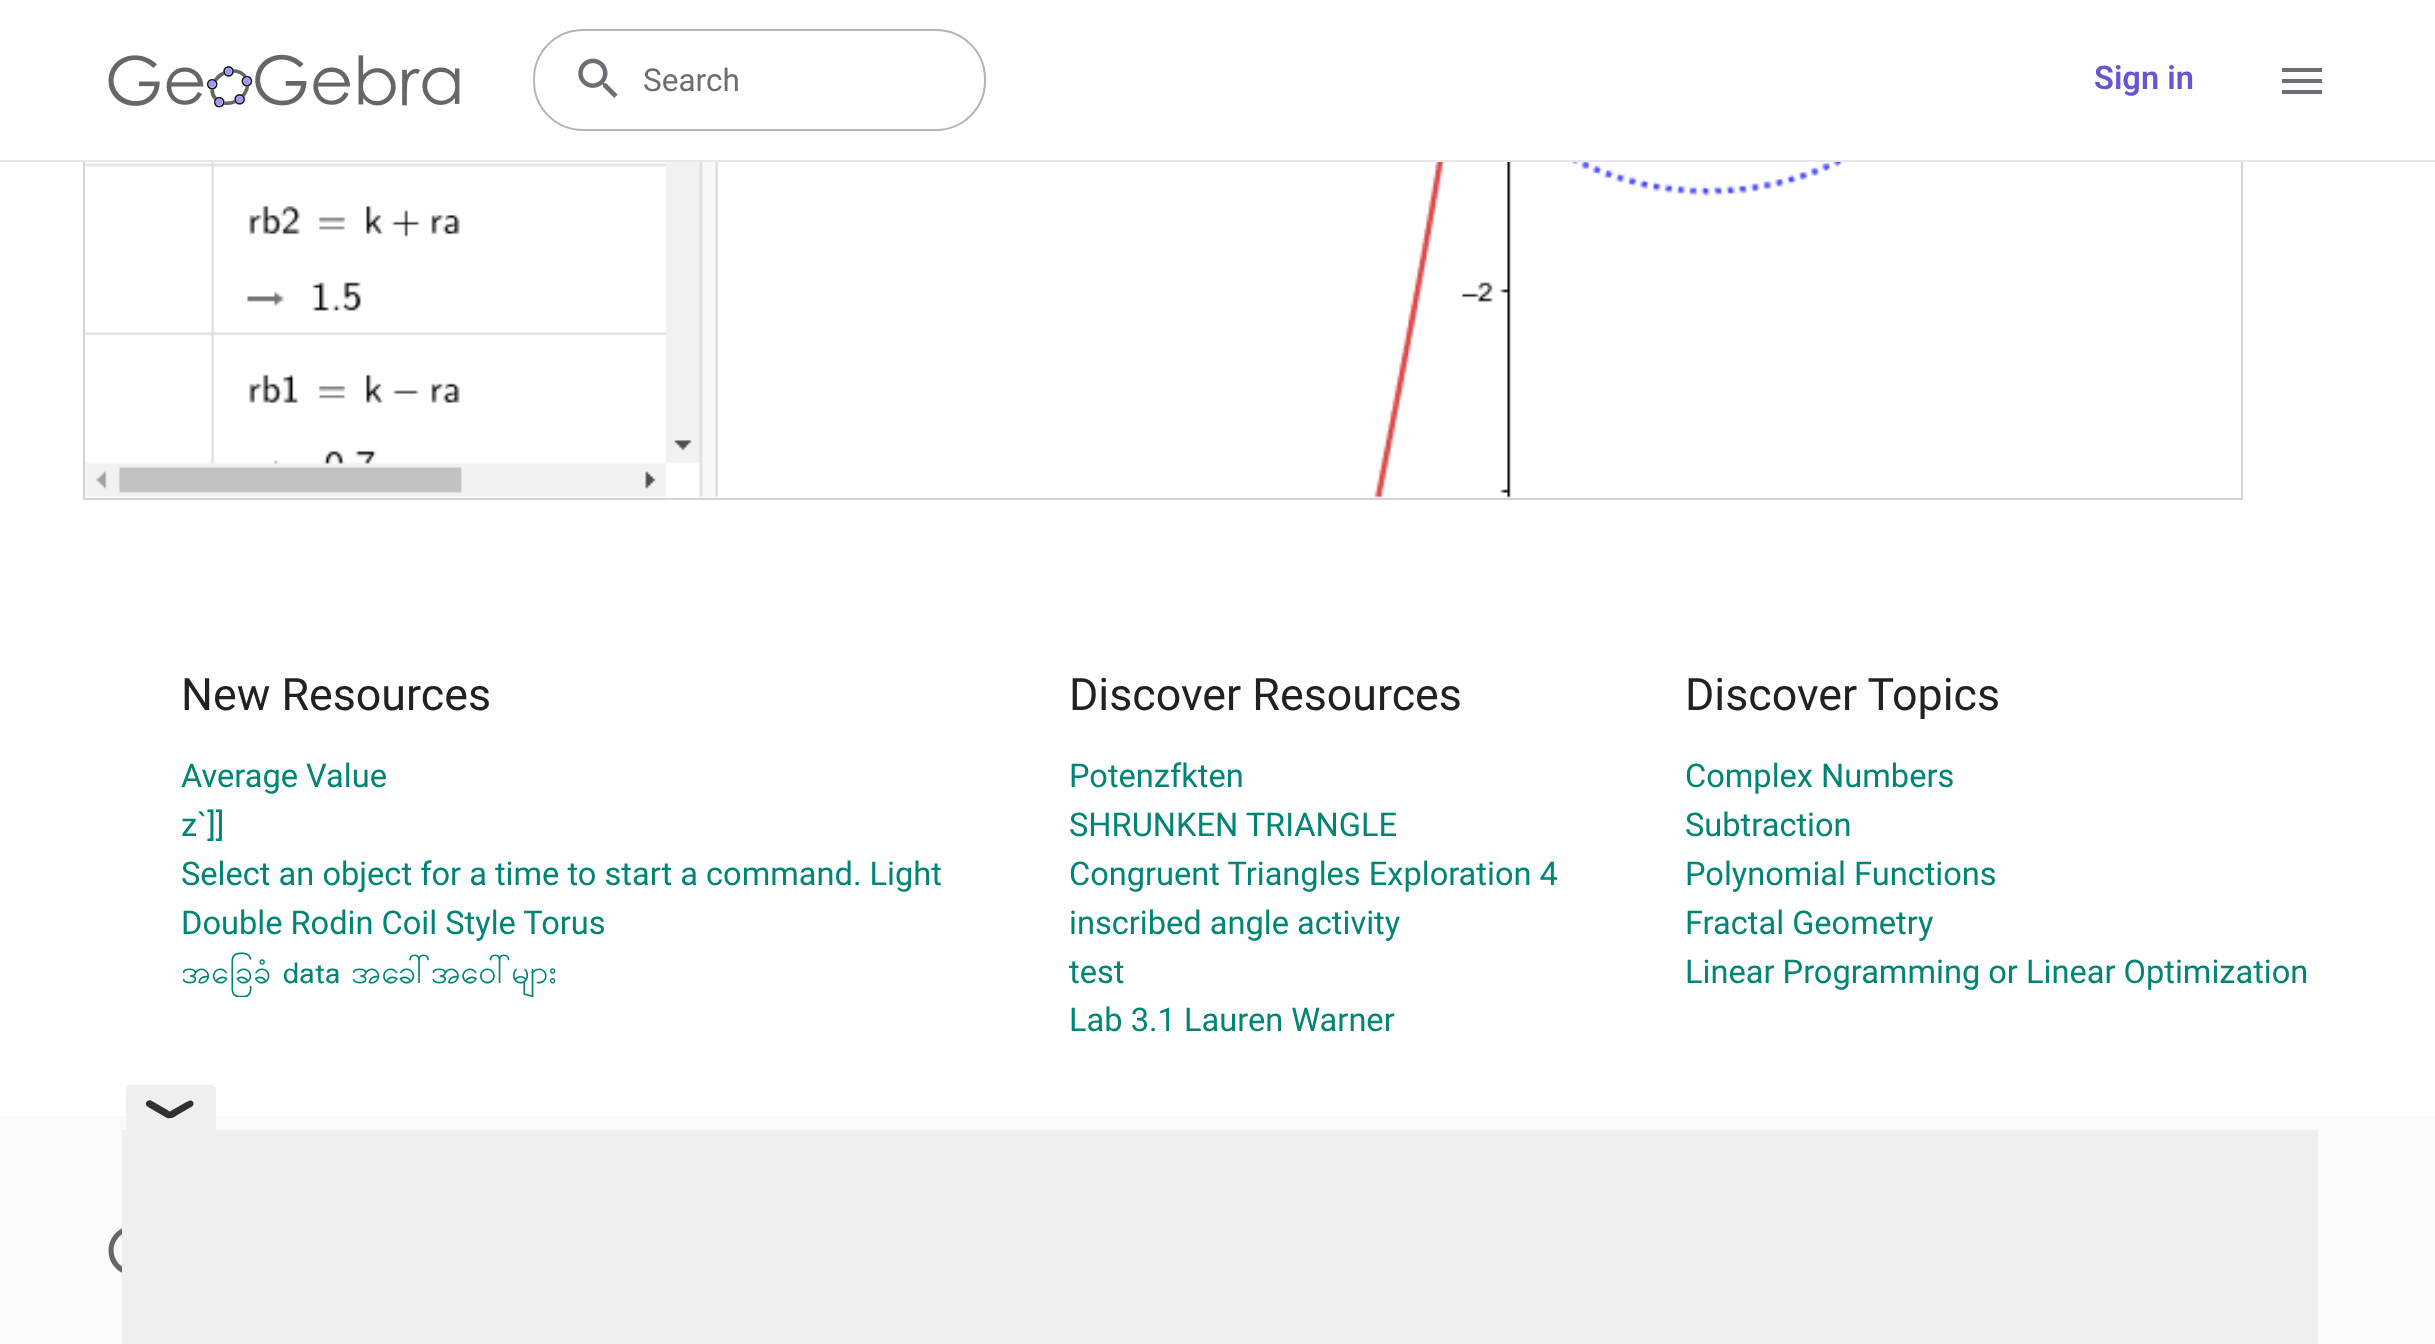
<svg xmlns="http://www.w3.org/2000/svg" width="2435" height="1344" viewBox="0 0 2435 1344">
  <defs>
    <clipPath id="clip1"><path d="M182 950h761v47H182z"/></clipPath>
  </defs>
  <rect width="100%" height="100%" fill="#fff"/>
  <image x="85" y="162" width="1907" height="336" href="img/3.png"/>
  <path d="M84 -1h2158v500H84z" fill="none" stroke="#d3d3d3" stroke-width="2"/>
  <path d="M83 0h2160v160H83z" fill="#fff"/>
  <path d="M0 160h2435v2H0z" fill="#e6e6eb"/>
  <image x="108" y="54" width="352" height="54" href="img/1.png"/>
  <rect x="534" y="30" width="451" height="100" rx="49" fill="none" stroke="#b4b3ba" stroke-width="2"/>
  <image x="578" y="58" width="40" height="40" href="img/2.png"/>
  <path d="M2282 68H2322V72H2282V68M2282 79H2322V83H2282V79M2282 90H2322V94H2282Z" fill="#6e6d73"/>
  <path d="M0 1116h2435v228H0z" fill="#fafafc"/>
  <image x="108" y="1228" width="14" height="45" href="img/4.png"/>
  <path d="M131 1085H211C214 1085 216 1087 216 1090V1130H126V1090C126 1087 128 1085 131 1085Z" fill="#efefef"/>
  <path d="M151 1100.5L167.5 1110L171.5 1113C174 1115.5 170.5 1119.5 167 1118L154 1110.5C152 1109 148 1107.5 146.5 1105.5C144.5 1103 148 1099 151 1100.5Z" fill="#313131"/>
  <path d="M169 1112L185.5 1102.5L190 1100.5C193.5 1100 195 1104.5 192 1106.5L179 1114C177 1115 173.5 1118 171.5 1118C167.5 1118.5 166 1113.5 169 1112Z" fill="#313131"/>
  <path d="M122 1130h2196v214H122z" fill="#efefef"/>
  <text x="643" y="91" font-family="Roboto" font-size="31.5" fill="#6e6d73">Search</text>
  <text x="2094" y="89" font-family="Roboto" font-size="32.6" font-weight="600" fill="#6557d2">Sign in</text>
  <text x="181" y="710" font-family="Roboto" font-size="44.75" fill="#212121">New Resources</text>
  <g font-family="Roboto" font-size="32.6" fill="#008475">
    <text x="181" y="787">Average Value</text>
    <text x="181" y="836">z`]]</text>
    <text x="181" y="885">Select an object for a time to start a command. Light</text>
    <text x="181" y="934">Double Rodin Coil Style Torus</text>
  </g>
  <g clip-path="url(#clip1)">
    <text x="181" y="983" word-spacing="-1" font-family="Padauk" font-size="32.6" fill="#008475">အခြေခံ data အခေါ်အဝေါ်များ</text>
  </g>
  <text x="1069" y="710" font-family="Roboto" font-size="44.75" fill="#212121">Discover Resources</text>
  <g font-family="Roboto" font-size="32.6" fill="#008475">
    <text x="1069" y="787">Potenzfkten</text>
    <text x="1069" y="836">SHRUNKEN TRIANGLE</text>
    <text x="1069" y="885">Congruent Triangles Exploration 4</text>
    <text x="1069" y="934">inscribed angle activity</text>
    <text x="1069" y="983">test</text>
    <text x="1069" y="1031">Lab 3.1 Lauren Warner</text>
  </g>
  <text x="1685" y="710" font-family="Roboto" font-size="44.75" fill="#212121">Discover Topics</text>
  <g font-family="Roboto" font-size="32.6" fill="#008475">
    <text x="1685" y="787">Complex Numbers</text>
    <text x="1685" y="836">Subtraction</text>
    <text x="1685" y="885">Polynomial Functions</text>
    <text x="1685" y="934">Fractal Geometry</text>
    <text x="1685" y="983">Linear Programming or Linear Optimization</text>
  </g>
</svg>
